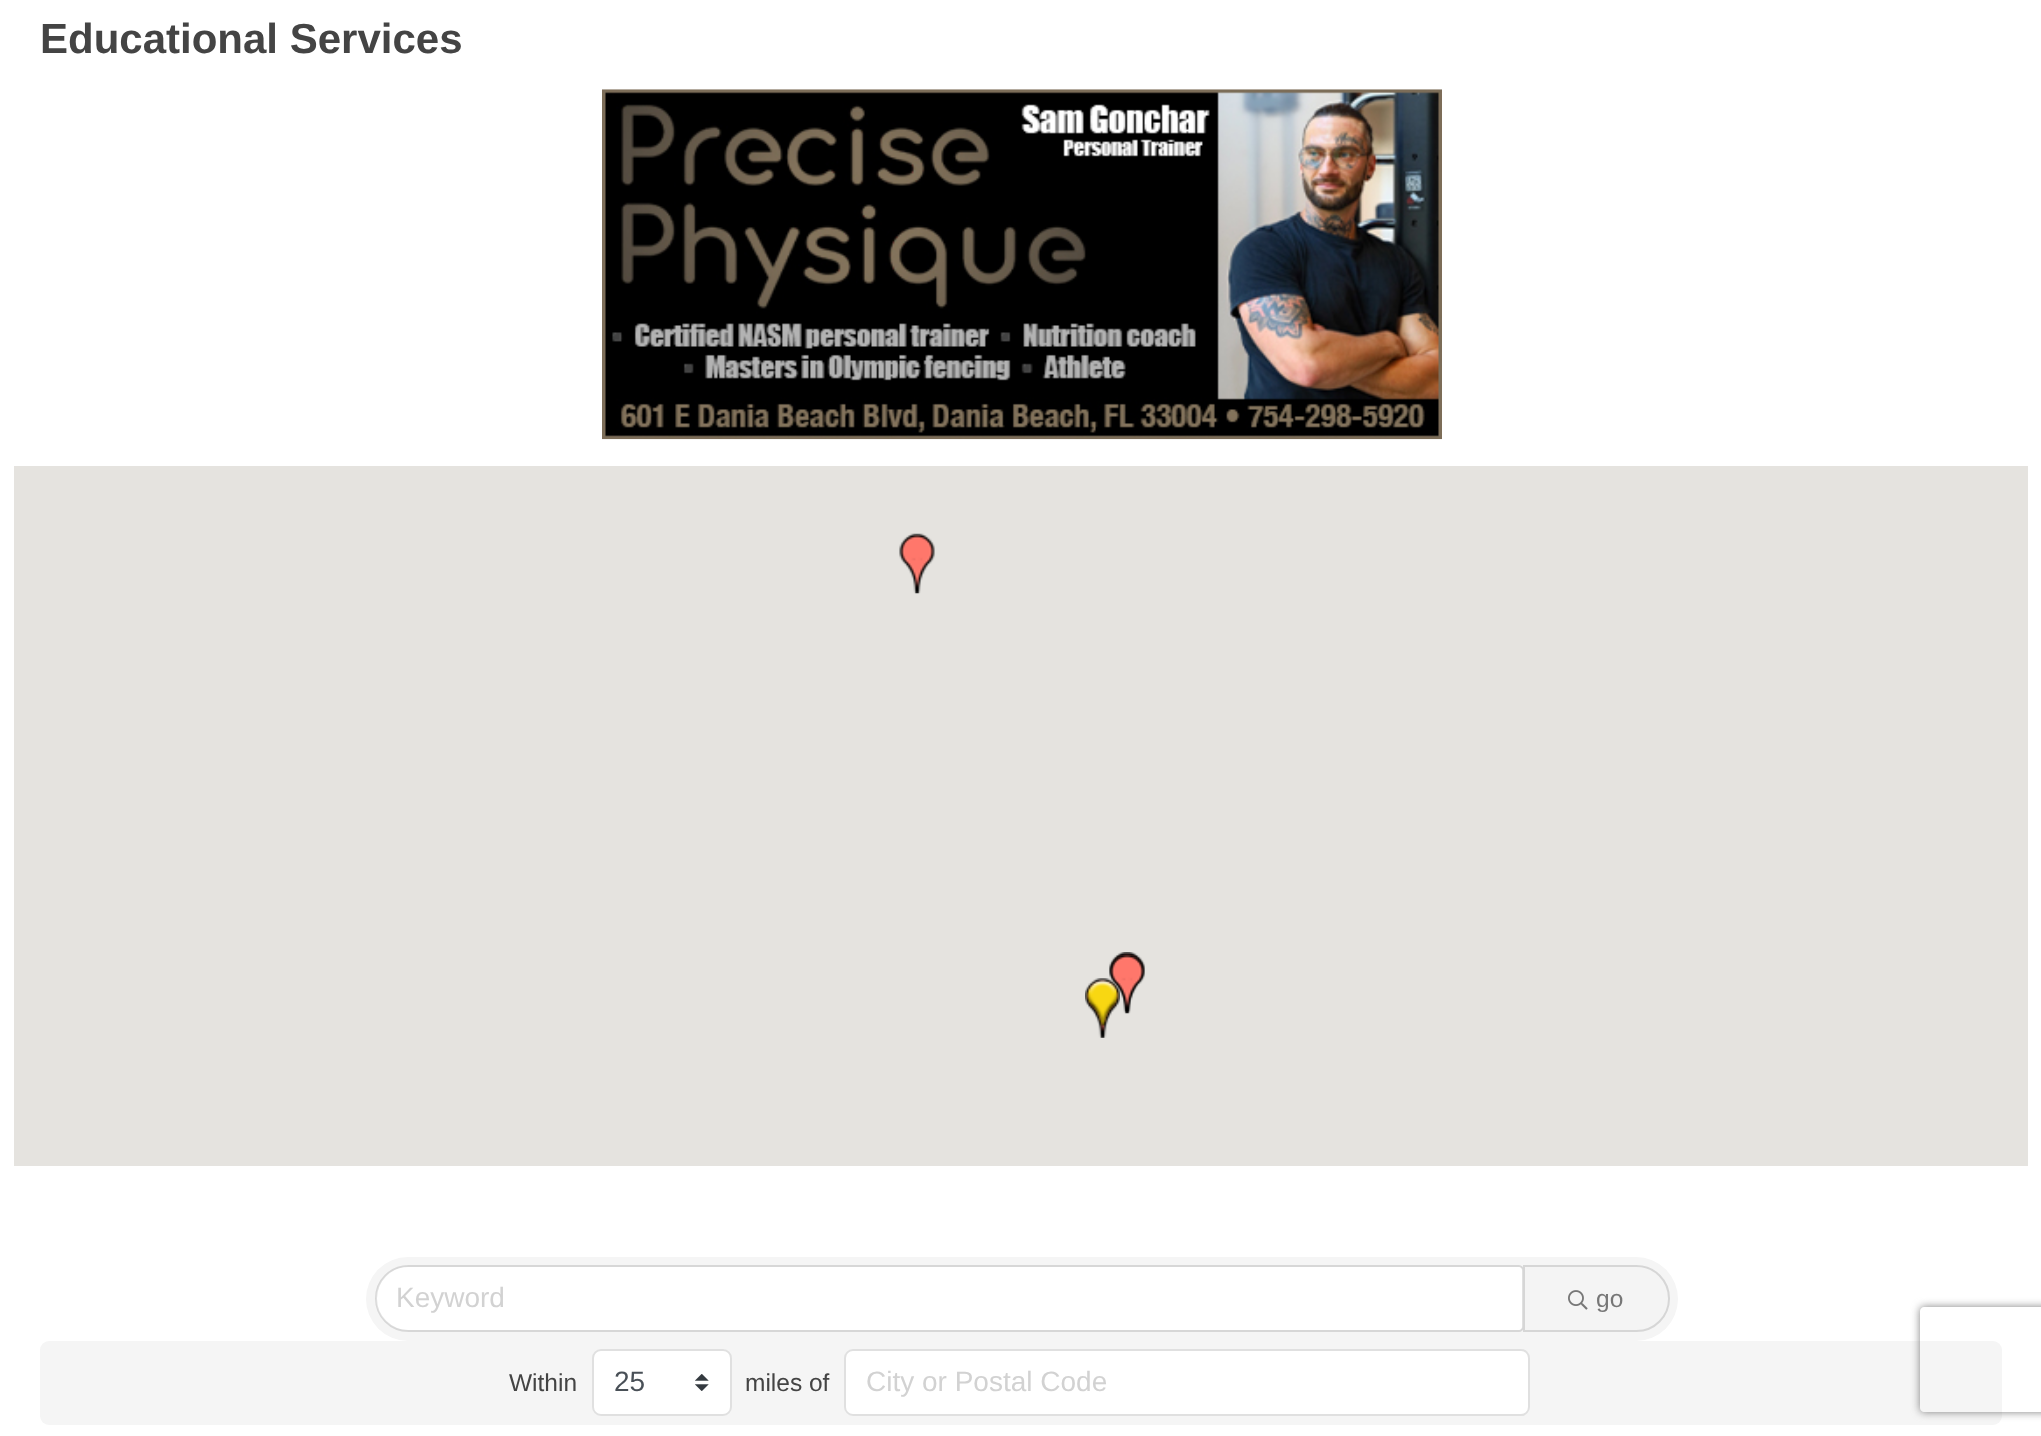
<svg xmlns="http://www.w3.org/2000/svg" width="2041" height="1436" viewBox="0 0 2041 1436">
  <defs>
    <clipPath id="clip1"><path d="M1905 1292H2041V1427H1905ZM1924 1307H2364C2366 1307 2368 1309 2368 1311V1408C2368 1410 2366 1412 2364 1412H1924C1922 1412 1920 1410 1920 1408V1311C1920 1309 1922 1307 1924 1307Z" clip-rule="evenodd"/></clipPath>
  </defs>
  <rect width="100%" height="100%" fill="#fff"/>
  <image x="602" y="89" width="840" height="351" href="img/1.png"/>
  <path d="M14 466h2014v700H14z" fill="#e5e3df"/>
  <image x="899" y="533" width="36" height="61" href="img/2.png"/>
  <image x="1109" y="952" width="36" height="60" href="img/3.png"/>
  <image x="1109" y="953" width="36" height="61" href="img/5.png"/>
  <image x="1085" y="978" width="35" height="60" href="img/4.png"/>
  <rect x="366" y="1257" width="1312" height="84" rx="42" fill="#f5f5f5"/>
  <path d="M407.5 1267H1519C1521 1267 1523 1269 1523 1271V1326C1523 1328 1521 1330 1519 1330H407.5C390 1330 376 1316 376 1298.5C376 1281 390 1267 407.5 1267Z" fill="#fff"/>
  <path d="M408.5 1266H1519C1521 1266 1523 1268 1523 1270V1327C1523 1329 1521 1331 1519 1331H408.5C390.5 1331 376 1316.5 376 1298.5C376 1280.5 390.5 1266 408.5 1266Z" fill="none" stroke="#0000001f" stroke-width="2"/>
  <path d="M1524 1266H1636.5C1654.5 1266 1669 1280.5 1669 1298.5C1669 1316.5 1654.5 1331 1636.5 1331H1524Z" fill="#f4f4f4" stroke="#d6d6d6" stroke-width="2"/>
  <image x="1568" y="1290" width="20" height="20" href="img/6.png"/>
  <rect x="40" y="1341" width="1962" height="84" rx="9" fill="#f5f5f5"/>
  <rect x="592" y="1349" width="140" height="67" rx="9" fill="#fff"/>
  <image x="695" y="1374" width="14" height="17" href="img/7.png"/>
  <rect x="593" y="1350" width="138" height="65" rx="8" fill="none" stroke="#0000001f" stroke-width="2"/>
  <rect x="844" y="1349" width="686" height="67" rx="9" fill="#fff"/>
  <rect x="845" y="1350" width="684" height="65" rx="8" fill="none" stroke="#0000001f" stroke-width="2"/>
  <g clip-path="url(#clip1)">
    <rect x="1920" y="1307" width="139" height="105" rx="4" fill="#808080" filter="blur(4.5px)"/>
  </g>
  <text x="40" y="53" font-family="Liberation Sans" font-size="42" font-weight="bold" fill="#444">Educational Services</text>
  <text x="396" y="1307" font-family="Liberation Sans" font-size="28" fill="#d2d2d2">Keyword</text>
  <text x="1596" y="1307" font-family="Liberation Sans" font-size="24.5" fill="#777">go</text>
  <text x="509" y="1391" font-family="Liberation Sans" font-size="24.5" fill="#444">Within</text>
  <text x="614" y="1391" font-family="Liberation Sans" font-size="28" fill="#495057">25</text>
  <text x="745" y="1391" font-family="Liberation Sans" font-size="24.5" fill="#444">miles of</text>
  <text x="866" y="1391" font-family="Liberation Sans" font-size="28" fill="#d2d2d2">City or Postal Code</text>
</svg>
